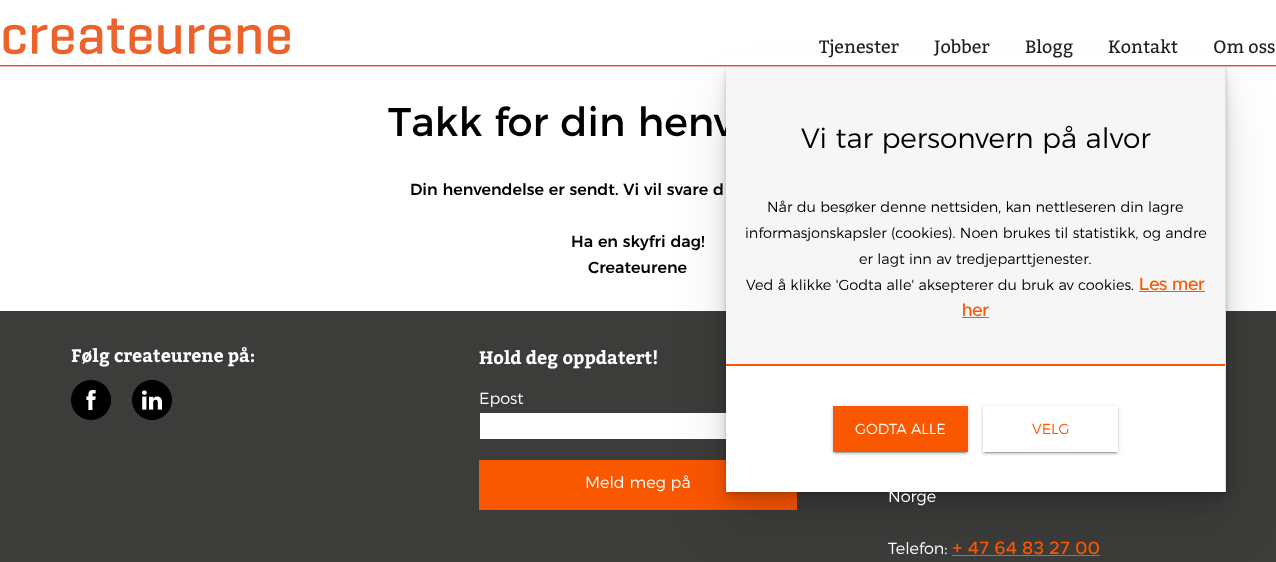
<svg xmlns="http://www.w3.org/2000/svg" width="1276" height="562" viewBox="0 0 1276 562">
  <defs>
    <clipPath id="clip1"><path d="M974 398H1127V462H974ZM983 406H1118V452H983Z" clip-rule="evenodd"/></clipPath>
    <clipPath id="clip2"><path d="M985 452h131v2H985z"/></clipPath>
    <clipPath id="clip3"><path d="M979 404H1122V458H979ZM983 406H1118V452H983Z" clip-rule="evenodd"/></clipPath>
  </defs>
  <rect width="100%" height="100%" fill="#fff"/>
  <path d="M0 311h1276v251H0z" fill="#3c3c3b"/>
  <path d="M480 413h246v26H480z" fill="#fff"/>
  <path d="M479 460h318v50H479z" fill="#fa5701"/>
  <path d="M952 555h148v1H952z" fill="#fa5701"/>
  <path d="M726 99h500v425H726z" fill="#00000012" filter="blur(32px)"/>
  <path d="M726 83h500v425H726z" fill="#00000012" filter="blur(16px)"/>
  <path d="M726 75h500v425H726z" fill="#00000012" filter="blur(8px)"/>
  <path d="M726 71h500v425H726z" fill="#00000012" filter="blur(4px)"/>
  <path d="M726 69h500v425H726z" fill="#00000012" filter="blur(2px)"/>
  <path d="M726 68h500v425H726z" fill="#00000012" filter="blur(1px)"/>
  <path d="M721 56h510v9H721z" fill="#fff"/>
  <path d="M0 65h1276v1H0z" fill="#e94e0f"/>
  <image x="3" y="18" width="287" height="37" href="img/1.png"/>
  <path d="M0 66h1276v1H0z" fill="#f6b2a2"/>
  <path d="M1225 67h1v425H1225z" fill="#e0e0e0"/>
  <path d="M726 364h499v2H726z" fill="#fa5701"/>
  <path d="M726 366h499v126H726z" fill="#fff"/>
  <path d="M833 407h135v46H833z" fill="#0000001f" filter="blur(2.5px)"/>
  <path d="M835 411h131v42H835z" fill="#00000033" filter="blur(0.5px)"/>
  <path d="M833 408h135v46H833z" fill="#00000024" filter="blur(1px)"/>
  <path d="M833 406h135v46H833z" fill="#fa5701"/>
  <g clip-path="url(#clip1)">
    <path d="M983 407h135v46H983z" fill="#0000001f" filter="blur(2.5px)"/>
  </g>
  <g clip-path="url(#clip2)">
    <path d="M985 411h131v42H985z" fill="#00000033" filter="blur(0.5px)"/>
  </g>
  <g clip-path="url(#clip3)">
    <path d="M983 408h135v46H983z" fill="#00000024" filter="blur(1px)"/>
  </g>
  <image x="71" y="380" width="40" height="40" href="img/2.png"/>
  <image x="132" y="380" width="40" height="40" href="img/3.png"/>
  <g font-family="Bitter" font-size="18" fill="#231f20">
    <text x="819" y="53">Tjenester</text>
    <text x="934" y="53">Jobber</text>
    <text x="1025" y="53">Blogg</text>
    <text x="1108" y="53">Kontakt</text>
    <text x="1213" y="53">Om oss</text>
  </g>
  <text x="388" y="136" font-family="Montserrat" font-size="40" fill="#000">Takk for din henv</text>
  <g font-family="Montserrat" font-size="16" font-weight="500" fill="#000">
    <text x="410" y="195">Din henvendelse er sendt. Vi vil svare d</text>
    <text x="571" y="247">Ha en skyfri dag!</text>
    <text x="588" y="273">Createurene</text>
  </g>
  <path d="M726 67h499v297H726z" fill="#f6f6f6"/>
  <text x="801" y="148" font-family="Montserrat" font-size="28" font-weight="300" fill="#000">Vi tar personvern på alvor</text>
  <g font-family="Montserrat" font-size="14.5" font-weight="300" fill="#000">
    <text x="767" y="212">Når du besøker denne nettsiden, kan nettleseren din lagre</text>
    <text x="745" y="238">informasjonskapsler (cookies). Noen brukes til statistikk, og andre</text>
    <text x="859" y="264">er lagt inn av tredjeparttjenester.</text>
    <text x="746" y="290">Ved å klikke 'Godta alle' aksepterer du bruk av cookies.</text>
  </g>
  <text x="1139" y="290" font-family="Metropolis" font-size="18" font-weight="500" fill="#fa5701">Les mer</text>
  <path d="M1139 291h66v1H1139z" fill="#fa5701"/>
  <text x="962" y="316" font-family="Metropolis" font-size="18" font-weight="500" fill="#fa5701">her</text>
  <path d="M962 317h27v1H962z" fill="#fa5701"/>
  <text x="855" y="434" font-family="Montserrat" font-size="14.5" font-weight="300" fill="#fff">GODTA ALLE</text>
  <text x="1032" y="434" font-family="Montserrat" font-size="14.5" font-weight="300" fill="#fa5701">VELG</text>
  <g font-family="Bitter" font-size="18" font-weight="bold" fill="#fff">
    <text x="71" y="362">Følg createurene på:</text>
    <text x="479" y="364">Hold deg oppdatert!</text>
  </g>
  <g font-family="Montserrat" font-size="16" font-weight="300" fill="#fff">
    <text x="479" y="404">Epost</text>
    <text x="585" y="488">Meld meg på</text>
    <text x="888" y="502">Norge</text>
    <text x="888" y="554">Telefon:</text>
  </g>
  <text x="952" y="554" font-family="Metropolis" font-size="18" font-weight="500" fill="#fa5701">+ 47 64 83 27 00</text>
</svg>
